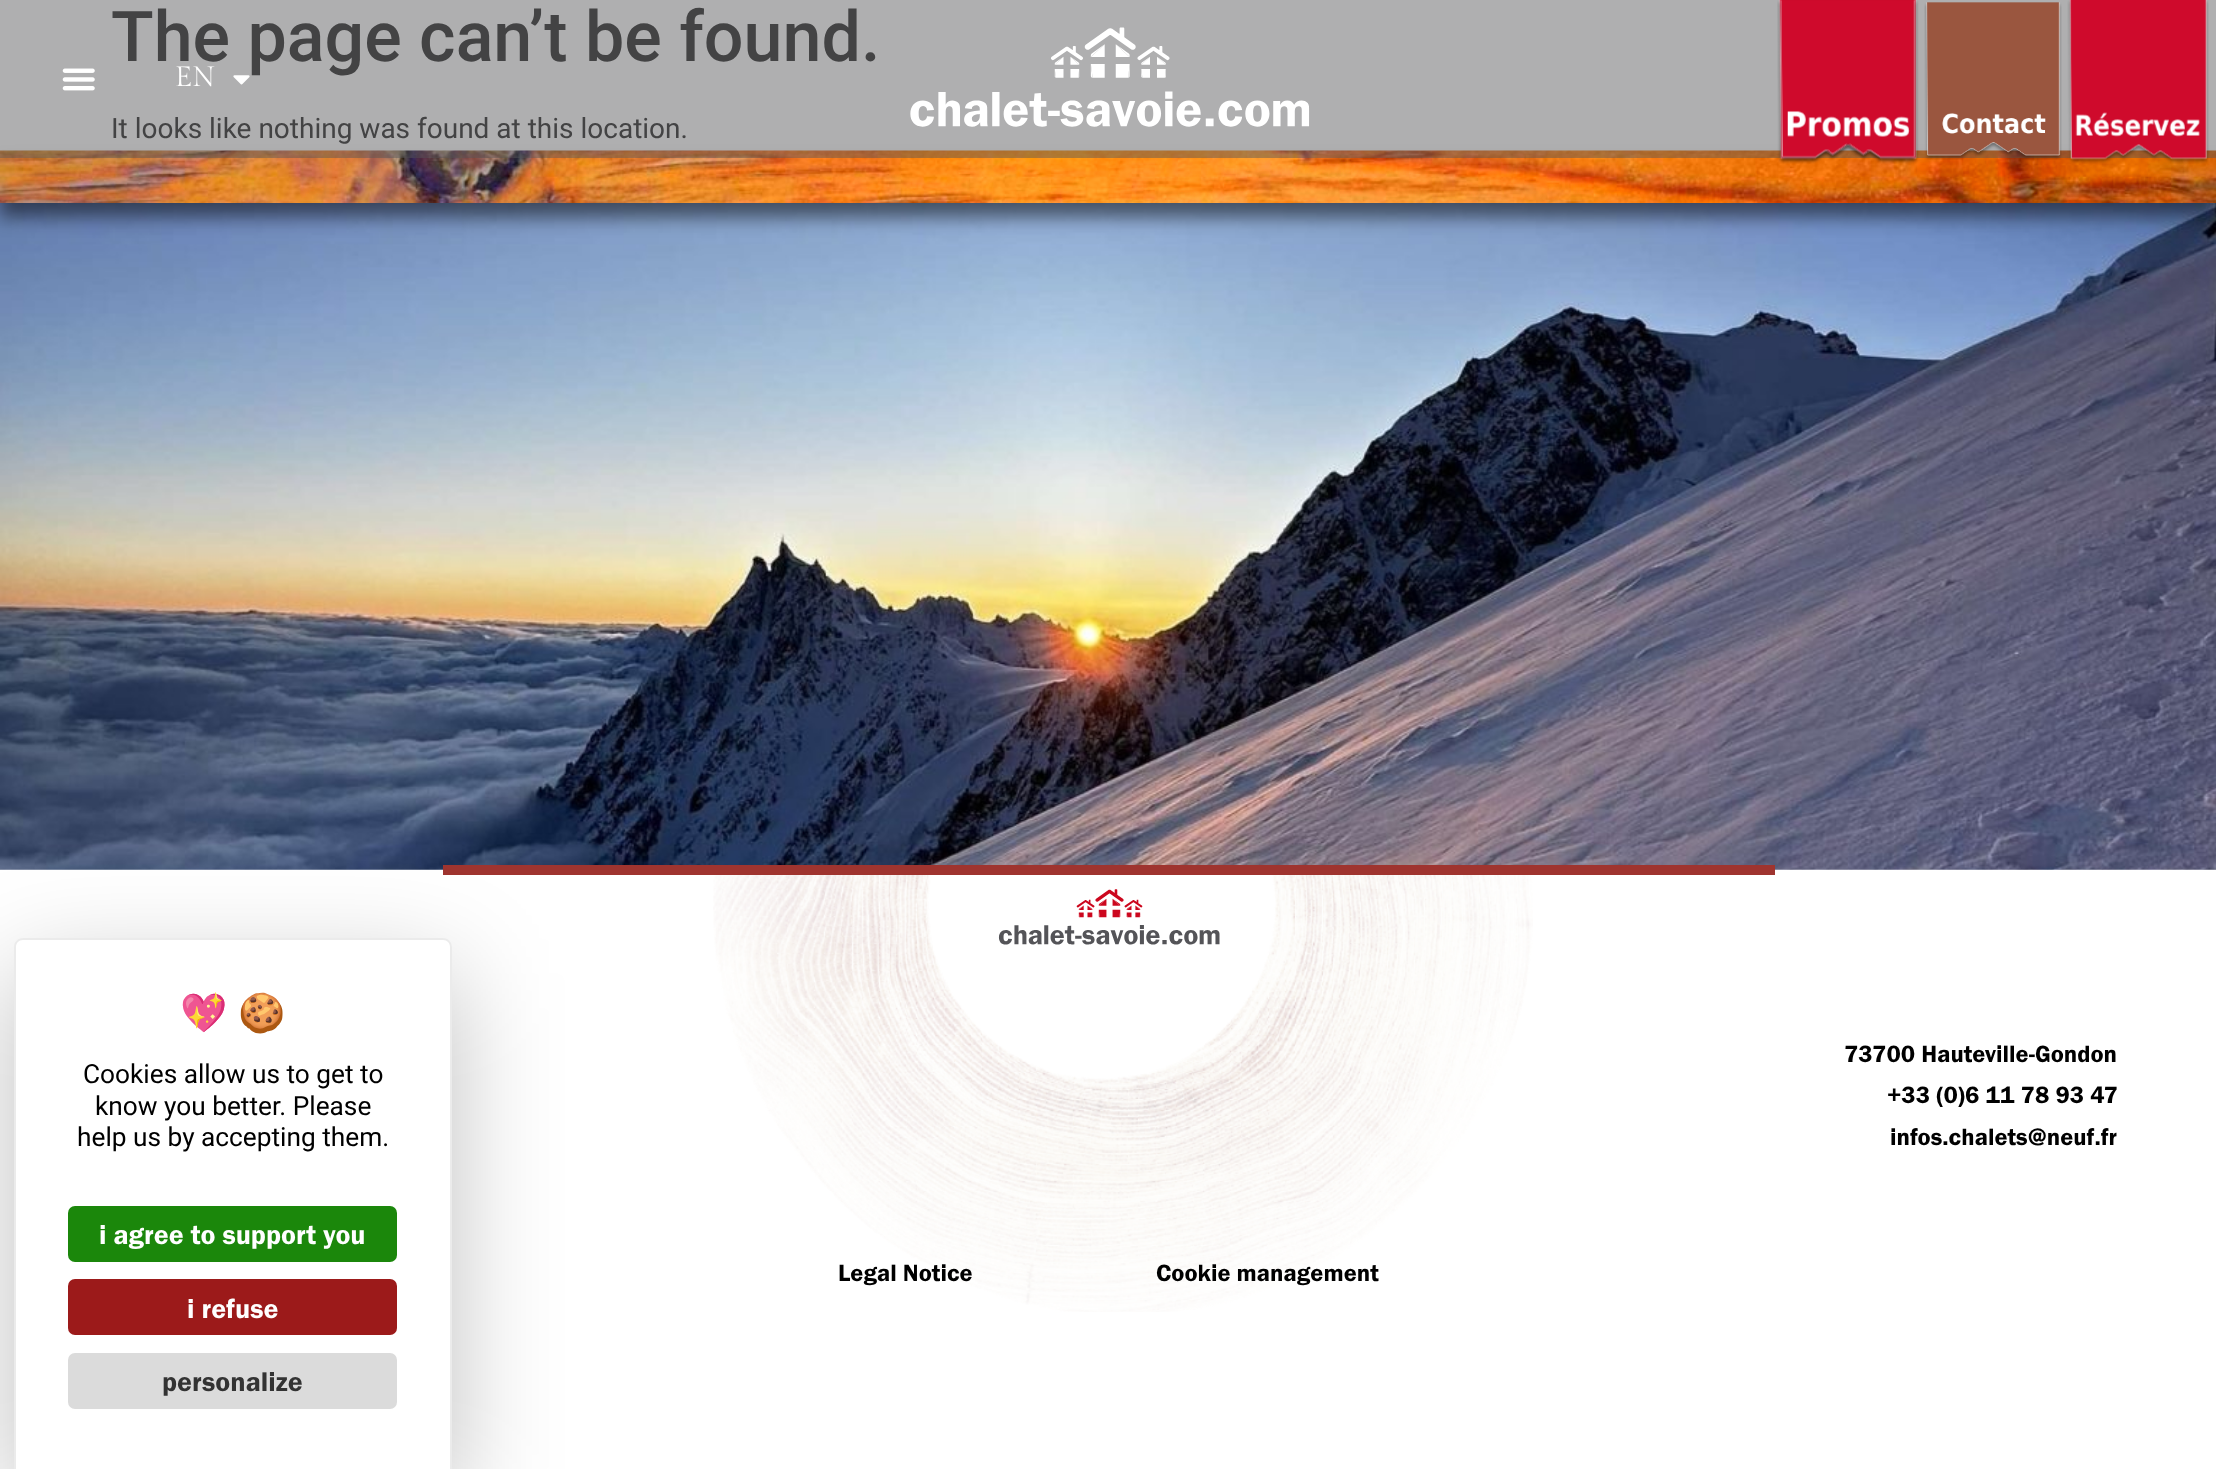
<svg xmlns="http://www.w3.org/2000/svg" width="2216" height="1469" viewBox="0 0 2216 1469">
  <rect width="100%" height="100%" fill="#fff"/>
  <image x="0" y="203" width="2216" height="667" href="img/8.png"/>
  <path d="M443 865h1332v10H443z" fill="#9f342f"/>
  <rect x="14" y="973" width="438" height="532" rx="9" fill="#00000040" filter="blur(52.5px)"/>
  <path d="M23 938H443C448 938 452 942 452 947V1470H14V947C14 942 18 938 23 938Z" fill="#fff"/>
  <path d="M23 938H443C448 938 452 942 452 947V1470H14V947C14 942 18 938 23 938ZM23 940H443C447 940 450 943 450 947V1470H16V947C16 943 19 940 23 940Z" fill="#00000014" fill-rule="evenodd"/>
  <rect x="68" y="1206" width="329" height="56" rx="7" fill="#1b870b"/>
  <rect x="68" y="1279" width="329" height="56" rx="7" fill="#9c1a1a"/>
  <rect x="68" y="1353" width="329" height="56" rx="7" fill="#dbdbdb"/>
  <path d="M0 165h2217v52H0z" fill="#00000080" filter="blur(9px)"/>
  <image x="0" y="150" width="2216" height="53" href="img/7.png"/>
  <image x="713" y="875" width="820" height="437" href="img/9.png"/>
  <image x="998" y="889" width="222" height="56" href="img/10.png"/>
  <text x="111" y="61" font-family="Roboto" font-size="70" font-weight="500" fill="#333">The page can’t be found.</text>
  <text x="111" y="138" font-family="Roboto" font-size="28" fill="#333">It looks like nothing was found at this location.</text>
  <path d="M0 0h2216v158H0z" fill="#54545878"/>
  <image x="62" y="68" width="33" height="23" href="img/1.png"/>
  <text x="175" y="86" font-family="Gilda Display" font-size="28" fill="#fff">EN</text>
  <image x="233" y="75" width="17" height="10" href="img/2.png"/>
  <image x="910" y="27" width="400" height="100" href="img/3.png"/>
  <image x="1777" y="0" width="142" height="164" href="img/4.png"/>
  <image x="1924" y="2" width="138" height="158" href="img/5.png"/>
  <image x="2067" y="0" width="142" height="164" href="img/6.png"/>
  <g font-family="Noto Color Emoji" font-size="38" fill="#000">
    <text x="180" y="1026">💖</text>
    <text x="238" y="1026">🍪</text>
  </g>
  <g font-family="Roboto" font-size="26.25" fill="#000">
    <text x="83" y="1083">Cookies allow us to get to</text>
    <text x="95" y="1115">know you better. Please</text>
    <text x="77" y="1146">help us by accepting them.</text>
  </g>
  <g font-family="Franklin Gothic" font-size="28" fill="#fff">
    <text x="99" y="1244">i agree to support you</text>
    <text x="187" y="1318">i refuse</text>
  </g>
  <text x="162" y="1391" font-family="Franklin Gothic" font-size="28" fill="#333">personalize</text>
  <g font-family="Franklin Gothic" font-size="24.5" fill="#000">
    <text x="1844" y="1062">73700 Hauteville-Gondon</text>
    <text x="1887" y="1103">+33 (0)6 11 78 93 47</text>
    <text x="1890" y="1145">infos.chalets@neuf.fr</text>
    <text x="838" y="1281">Legal Notice</text>
    <text x="1156" y="1281">Cookie management</text>
  </g>
</svg>
